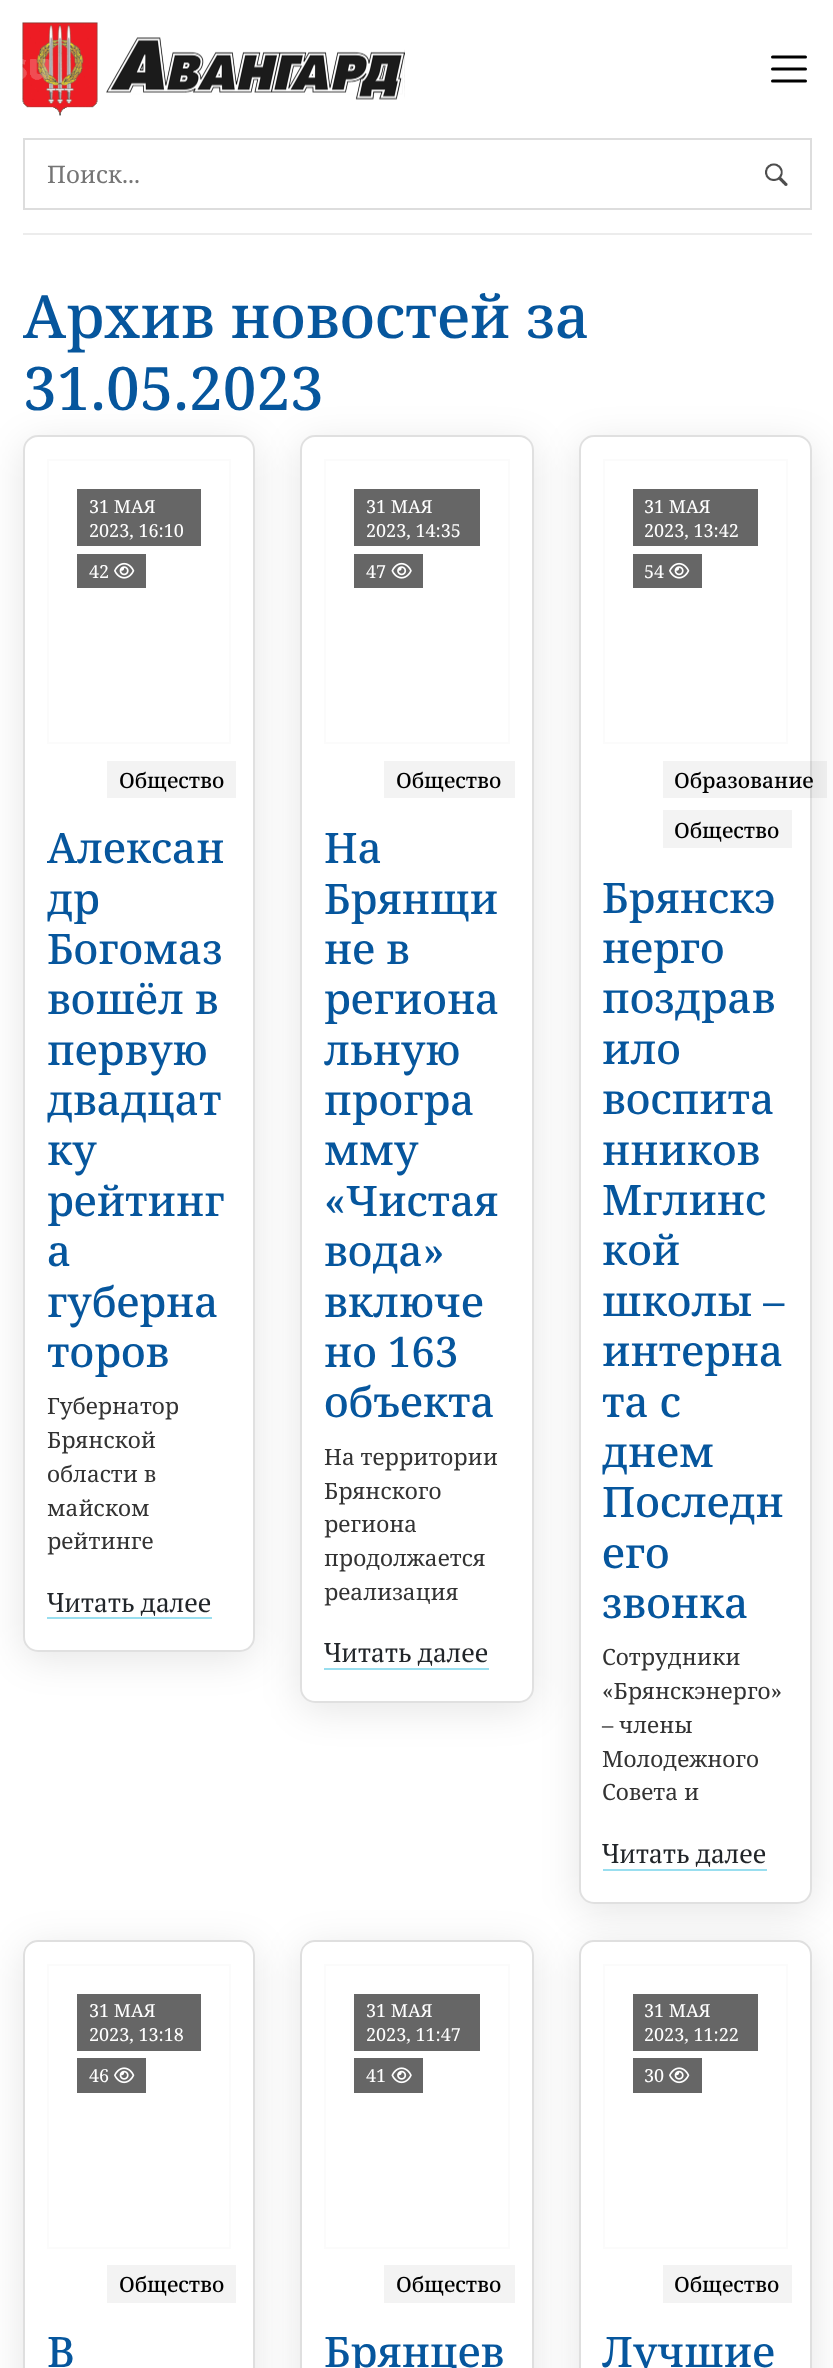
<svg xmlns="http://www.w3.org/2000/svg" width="833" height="2368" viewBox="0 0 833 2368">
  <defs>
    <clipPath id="clip1"><path d="M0 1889H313V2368H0ZM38 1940H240C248.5 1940 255 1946.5 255 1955V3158C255 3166.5 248.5 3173 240 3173H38C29.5 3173 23 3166.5 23 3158V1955C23 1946.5 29.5 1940 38 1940Z" clip-rule="evenodd"/></clipPath>
    <clipPath id="clip2"><path d="M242 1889H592V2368H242ZM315 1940H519C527.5 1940 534 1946.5 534 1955V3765C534 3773.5 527.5 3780 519 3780H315C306.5 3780 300 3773.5 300 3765V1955C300 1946.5 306.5 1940 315 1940Z" clip-rule="evenodd"/></clipPath>
  </defs>
  <rect width="100%" height="100%" fill="#fff"/>
  <path d="M23 233h789v2H23z" fill="#ececec"/>
  <image x="22" y="22" width="76" height="94" href="img/1.png"/>
  <image x="106" y="37" width="299" height="63" href="img/2.png"/>
  <path d="M772.5 57H805.5M772.5 69H805.5M772.5 81H805.5" fill="none" stroke="#000" stroke-width="3" stroke-linecap="round"/>
  <image x="765" y="163" width="23" height="23" href="img/3.png"/>
  <path d="M24 139h787v70H24z" fill="none" stroke="#ddd" stroke-width="2"/>
  <rect x="23" y="443" width="232" height="1216" rx="15" fill="#0000001a" filter="blur(19px)"/>
  <rect x="23" y="435" width="232" height="1217" rx="15" fill="#fff"/>
  <rect x="24" y="436" width="230" height="1215" rx="14" fill="none" stroke="#0000001f" stroke-width="2"/>
  <path d="M48 460h182v283H48z" fill="none" stroke="#fbfbfb" stroke-width="2"/>
  <path d="M77 489h124v57H77z" fill="#666"/>
  <path d="M77 554h69v34H77z" fill="#666"/>
  <image x="114" y="562" width="21" height="17" href="img/4.png"/>
  <path d="M107 761h129v37H107z" fill="#f3f3f3"/>
  <path d="M47 1617h165v2H47z" fill="#99deef"/>
  <rect x="300" y="443" width="234" height="1267" rx="15" fill="#0000001a" filter="blur(19px)"/>
  <rect x="300" y="435" width="234" height="1268" rx="15" fill="#fff"/>
  <rect x="301" y="436" width="232" height="1266" rx="14" fill="none" stroke="#0000001f" stroke-width="2"/>
  <path d="M325 460h184v283H325z" fill="none" stroke="#fbfbfb" stroke-width="2"/>
  <path d="M354 489h126v57H354z" fill="#666"/>
  <path d="M354 554h69v34H354z" fill="#666"/>
  <image x="391" y="562" width="21" height="17" href="img/5.png"/>
  <path d="M384 761h131v37H384z" fill="#f3f3f3"/>
  <path d="M324 1668h165v2H324z" fill="#99deef"/>
  <rect x="579" y="443" width="233" height="1468" rx="15" fill="#0000001a" filter="blur(19px)"/>
  <rect x="579" y="435" width="233" height="1469" rx="15" fill="#fff"/>
  <rect x="580" y="436" width="231" height="1467" rx="14" fill="none" stroke="#0000001f" stroke-width="2"/>
  <path d="M604 460h183v283H604z" fill="none" stroke="#fbfbfb" stroke-width="2"/>
  <path d="M633 489h125v57H633z" fill="#666"/>
  <path d="M633 554h69v34H633z" fill="#666"/>
  <image x="669" y="562" width="21" height="17" href="img/4.png"/>
  <path d="M663 761h164v37H663z" fill="#1313130d"/>
  <path d="M663 810h129v38H663z" fill="#f3f3f3"/>
  <path d="M603 1869h164v2H603z" fill="#99deef"/>
  <g clip-path="url(#clip1)">
    <rect x="23" y="1947" width="232" height="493" rx="15" fill="#0000001a" filter="blur(19px)"/>
  </g>
  <rect x="24" y="1941" width="230" height="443" rx="14" fill="none" stroke="#dfdfdf" stroke-width="2"/>
  <path d="M48 1965h182v283H48z" fill="none" stroke="#fbfbfb" stroke-width="2"/>
  <path d="M77 1994h124v57H77z" fill="#666"/>
  <path d="M77 2058h69v35H77z" fill="#666"/>
  <image x="114" y="2067" width="21" height="17" href="img/6.png"/>
  <path d="M107 2265h129v38H107z" fill="#f3f3f3"/>
  <g clip-path="url(#clip2)">
    <rect x="300" y="1947" width="234" height="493" rx="15" fill="#0000001a" filter="blur(19px)"/>
  </g>
  <rect x="301" y="1941" width="232" height="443" rx="14" fill="none" stroke="#dfdfdf" stroke-width="2"/>
  <path d="M325 1965h184v283H325z" fill="none" stroke="#fbfbfb" stroke-width="2"/>
  <path d="M354 1994h126v57H354z" fill="#666"/>
  <path d="M354 2058h69v35H354z" fill="#666"/>
  <image x="391" y="2067" width="21" height="17" href="img/7.png"/>
  <path d="M384 2265h131v38H384z" fill="#f3f3f3"/>
  <rect x="579" y="1947" width="233" height="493" rx="15" fill="#0000001a" filter="blur(19px)"/>
  <rect x="580" y="1941" width="231" height="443" rx="14" fill="#fff" stroke="#dfdfdf" stroke-width="2"/>
  <path d="M604 1965h183v283H604z" fill="none" stroke="#fbfbfb" stroke-width="2"/>
  <path d="M633 1994h125v57H633z" fill="#666"/>
  <path d="M633 2058h69v35H633z" fill="#666"/>
  <image x="669" y="2067" width="21" height="17" href="img/6.png"/>
  <path d="M663 2265h129v38H663z" fill="#f3f3f3"/>
  <text x="47" y="183" font-family="Noto Serif" font-size="24" fill="#757575">Поиск...</text>
  <g font-family="Noto Serif" font-size="60" font-weight="500" fill="#06569d">
    <text x="23" y="338">Архив новостей за</text>
    <text x="23" y="410">31.05.2023</text>
  </g>
  <g font-family="Noto Serif" font-size="18" fill="#fff">
    <text x="89" y="513">31 МАЯ</text>
    <text x="89" y="537">2023, 16:10</text>
    <text x="89" y="578">42</text>
  </g>
  <text x="119" y="788" font-family="Noto Serif" font-size="21" font-weight="500" fill="#000">Общество</text>
  <g font-family="Noto Serif" font-size="42" font-weight="500" fill="#06569d">
    <text x="47" y="863">Алексан</text>
    <text x="47" y="914">др</text>
    <text x="47" y="964">Богомаз</text>
    <text x="47" y="1014">вошёл в</text>
    <text x="47" y="1065">первую</text>
    <text x="47" y="1115">двадцат</text>
    <text x="47" y="1165">ку</text>
    <text x="47" y="1216">рейтинг</text>
    <text x="47" y="1266">а</text>
    <text x="47" y="1317">губерна</text>
    <text x="47" y="1367">торов</text>
  </g>
  <g font-family="Noto Serif" font-size="22.5" fill="#333">
    <text x="47" y="1414">Губернатор</text>
    <text x="47" y="1448">Брянской</text>
    <text x="47" y="1482">области в</text>
    <text x="47" y="1516">майском</text>
    <text x="47" y="1549">рейтинге</text>
  </g>
  <text x="47" y="1612" font-family="PT Serif" font-size="27" fill="#212529">Читать далее</text>
  <g font-family="Noto Serif" font-size="18" fill="#fff">
    <text x="366" y="513">31 МАЯ</text>
    <text x="366" y="537">2023, 14:35</text>
    <text x="366" y="578">47</text>
  </g>
  <text x="396" y="788" font-family="Noto Serif" font-size="21" font-weight="500" fill="#000">Общество</text>
  <g font-family="Noto Serif" font-size="42" font-weight="500" fill="#06569d">
    <text x="324" y="863">На</text>
    <text x="324" y="914">Брянщи</text>
    <text x="324" y="964">не в</text>
    <text x="324" y="1014">региона</text>
    <text x="324" y="1065">льную</text>
    <text x="324" y="1115">програ</text>
    <text x="324" y="1165">мму</text>
    <text x="324" y="1216">«Чистая</text>
    <text x="324" y="1266">вода»</text>
    <text x="324" y="1317">включе</text>
    <text x="324" y="1367">но 163</text>
    <text x="324" y="1417">объекта</text>
  </g>
  <g font-family="Noto Serif" font-size="22.5" fill="#333">
    <text x="324" y="1465">На территории</text>
    <text x="324" y="1499">Брянского</text>
    <text x="324" y="1532">региона</text>
    <text x="324" y="1566">продолжается</text>
    <text x="324" y="1600">реализация</text>
  </g>
  <text x="324" y="1662" font-family="PT Serif" font-size="27" fill="#212529">Читать далее</text>
  <g font-family="Noto Serif" font-size="18" fill="#fff">
    <text x="644" y="513">31 МАЯ</text>
    <text x="644" y="537">2023, 13:42</text>
    <text x="644" y="578">54</text>
  </g>
  <g font-family="Noto Serif" font-size="21" font-weight="500" fill="#000">
    <text x="674" y="788">Образование</text>
    <text x="674" y="838">Общество</text>
  </g>
  <g font-family="Noto Serif" font-size="42" font-weight="500" fill="#06569d">
    <text x="602" y="913">Брянскэ</text>
    <text x="602" y="963">нерго</text>
    <text x="602" y="1013">поздрав</text>
    <text x="602" y="1064">ило</text>
    <text x="602" y="1114">воспита</text>
    <text x="602" y="1165">нников</text>
    <text x="602" y="1215">Мглинс</text>
    <text x="602" y="1265">кой</text>
    <text x="602" y="1316">школы –</text>
    <text x="602" y="1366">интерна</text>
    <text x="602" y="1417">та с</text>
    <text x="602" y="1467">днем</text>
    <text x="602" y="1517">Последн</text>
    <text x="602" y="1568">его</text>
    <text x="602" y="1618">звонка</text>
  </g>
  <g font-family="Noto Serif" font-size="22.5" fill="#333">
    <text x="602" y="1665">Сотрудники</text>
    <text x="602" y="1699">«Брянскэнерго»</text>
    <text x="602" y="1733">– члены</text>
    <text x="602" y="1767">Молодежного</text>
    <text x="602" y="1800">Совета и</text>
  </g>
  <text x="602" y="1863" font-family="PT Serif" font-size="27" fill="#212529">Читать далее</text>
  <g font-family="Noto Serif" font-size="18" fill="#fff">
    <text x="89" y="2017">31 МАЯ</text>
    <text x="89" y="2041">2023, 13:18</text>
    <text x="89" y="2082">46</text>
  </g>
  <text x="119" y="2292" font-family="Noto Serif" font-size="21" font-weight="500" fill="#000">Общество</text>
  <text x="47" y="2367" font-family="Noto Serif" font-size="42" font-weight="500" fill="#06569d">В</text>
  <g font-family="Noto Serif" font-size="18" fill="#fff">
    <text x="366" y="2017">31 МАЯ</text>
    <text x="366" y="2041">2023, 11:47</text>
    <text x="366" y="2082">41</text>
  </g>
  <text x="396" y="2292" font-family="Noto Serif" font-size="21" font-weight="500" fill="#000">Общество</text>
  <text x="324" y="2367" font-family="Noto Serif" font-size="42" font-weight="500" fill="#06569d">Брянцев</text>
  <g font-family="Noto Serif" font-size="18" fill="#fff">
    <text x="644" y="2017">31 МАЯ</text>
    <text x="644" y="2041">2023, 11:22</text>
    <text x="644" y="2082">30</text>
  </g>
  <text x="674" y="2292" font-family="Noto Serif" font-size="21" font-weight="500" fill="#000">Общество</text>
  <text x="602" y="2367" font-family="Noto Serif" font-size="42" font-weight="500" fill="#06569d">Лучшие</text>
</svg>
